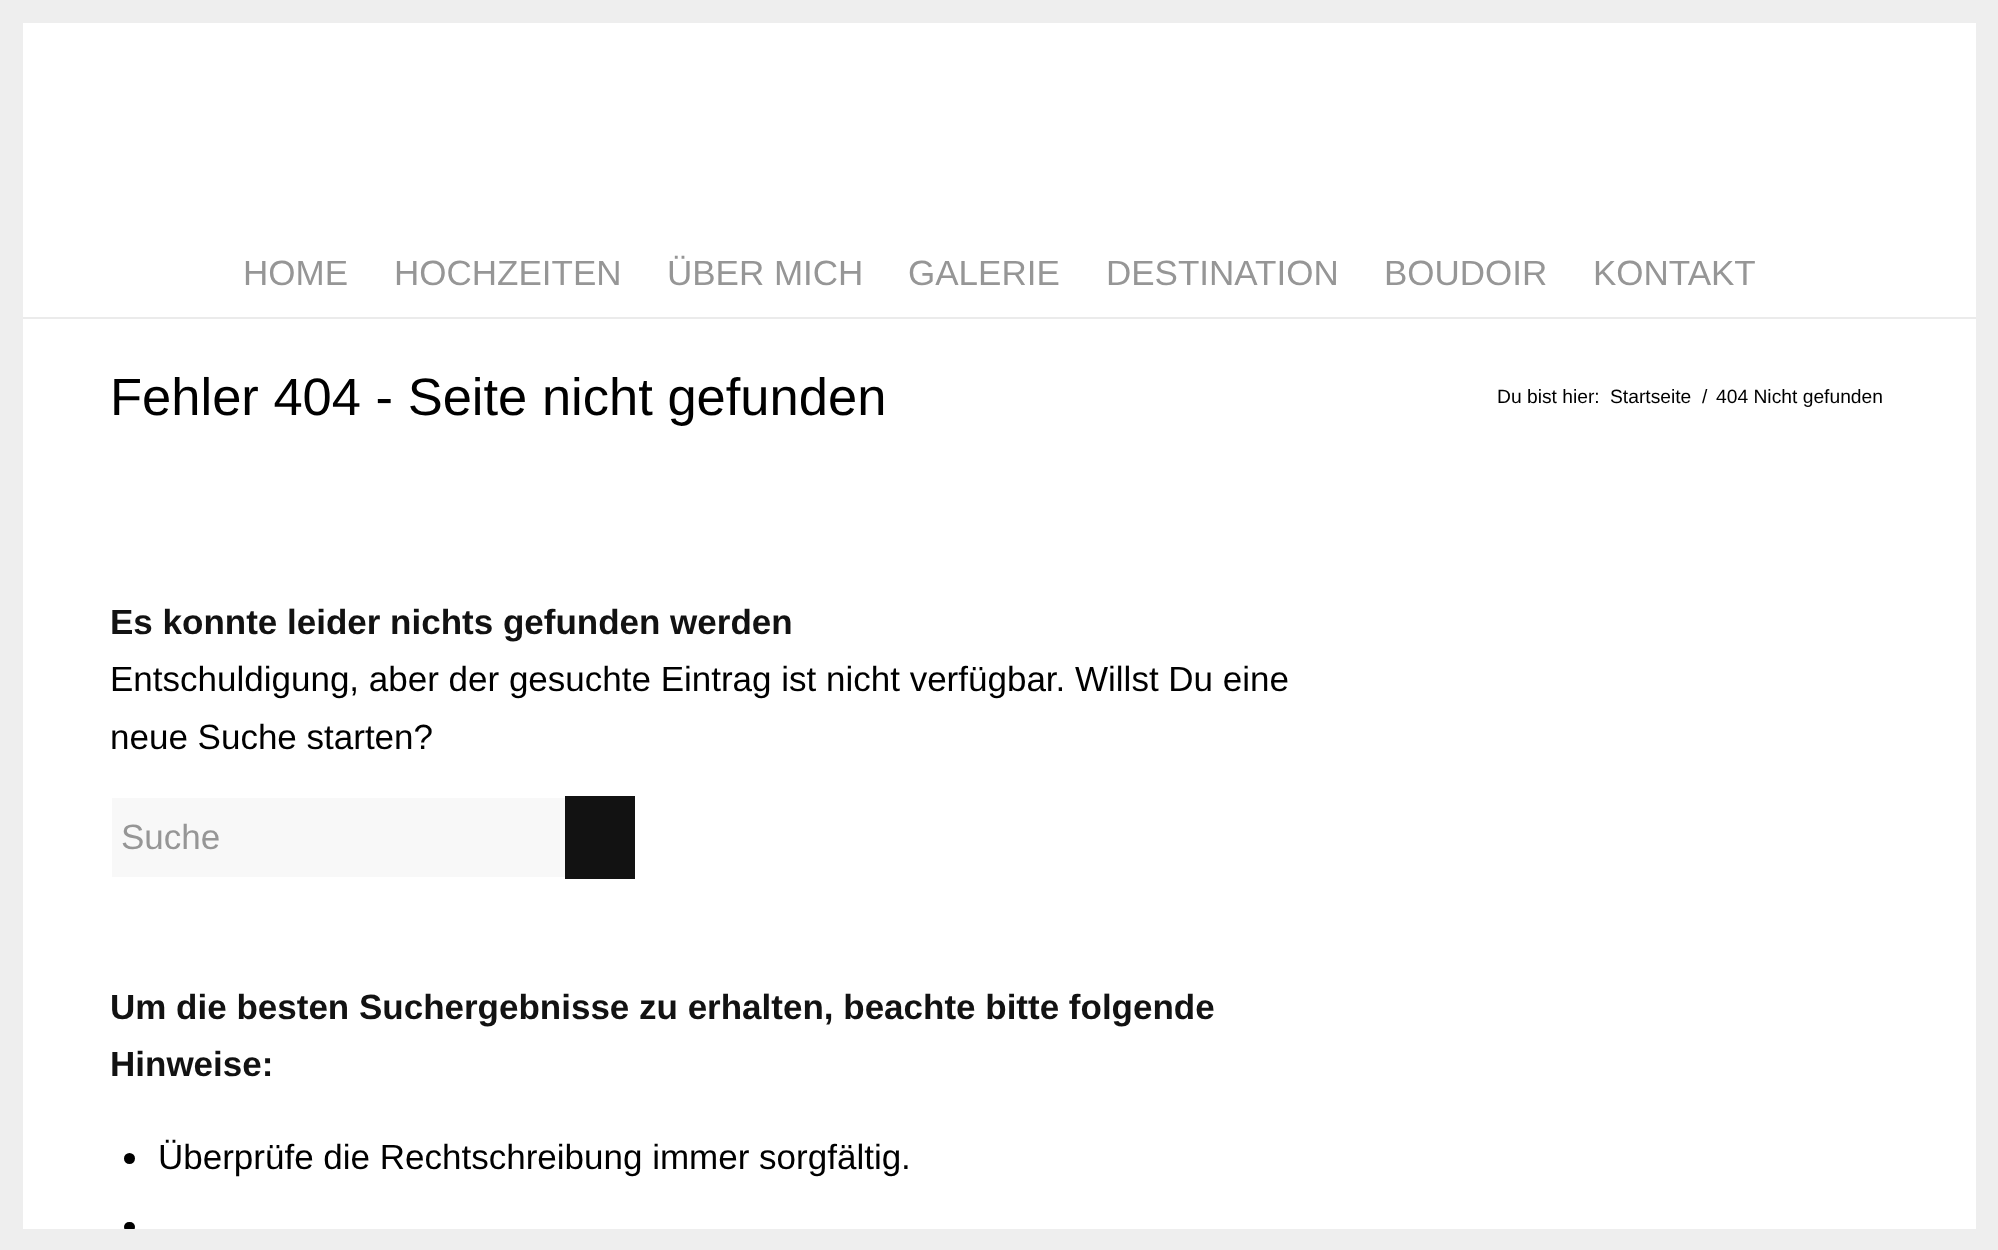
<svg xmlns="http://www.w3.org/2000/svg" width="1998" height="1250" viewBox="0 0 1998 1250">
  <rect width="100%" height="100%" fill="#fff"/>
  <path d="M0 0h23v1250H0z" fill="#eee"/>
  <path d="M23 0h1953v23H23z" fill="#eee"/>
  <path d="M1976 0h22v1250H1976z" fill="#eee"/>
  <path d="M23 317h1953v2H23z" fill="#ebebeb"/>
  <path d="M112 798h453v79H112z" fill="#f8f8f8"/>
  <path d="M565 796h70v83H565z" fill="#121212"/>
  <circle cx="129.5" cy="1158.5" r="5.5" fill="#000"/>
  <rect x="124" y="1222" width="11" height="10" rx="5" fill="#000"/>
  <path d="M23 1229h1953v21H23z" fill="#eee"/>
  <g font-family="Liberation Sans" font-size="35" fill="#969696">
    <text x="243" y="285">HOME</text>
    <text x="394" y="285">HOCHZEITEN</text>
    <text x="667" y="285">ÜBER MICH</text>
    <text x="908" y="285">GALERIE</text>
    <text x="1106" y="285">DESTINATION</text>
    <text x="1384" y="285">BOUDOIR</text>
    <text x="1593" y="285">KONTAKT</text>
  </g>
  <text x="110" y="415" font-family="Liberation Sans" font-size="52.5" fill="#000">Fehler 404 - Seite nicht gefunden</text>
  <g font-family="Liberation Sans" font-size="19.25" fill="#000">
    <text x="1497" y="403">Du bist hier:</text>
    <text x="1610" y="403">Startseite</text>
    <text x="1702" y="403">/</text>
    <text x="1716" y="403">404 Nicht gefunden</text>
  </g>
  <text x="110" y="634" font-family="Liberation Sans" font-size="35" font-weight="bold" fill="#121212">Es konnte leider nichts gefunden werden</text>
  <g font-family="Liberation Sans" font-size="35" fill="#000">
    <text x="110" y="691">Entschuldigung, aber der gesuchte Eintrag ist nicht verfügbar. Willst Du eine</text>
    <text x="110" y="749">neue Suche starten?</text>
  </g>
  <text x="121" y="849" font-family="Liberation Sans" font-size="35" fill="#969696">Suche</text>
  <g font-family="Liberation Sans" font-size="35" font-weight="bold" fill="#121212">
    <text x="110" y="1019">Um die besten Suchergebnisse zu erhalten, beachte bitte folgende</text>
    <text x="110" y="1076">Hinweise:</text>
  </g>
  <text x="158" y="1169" font-family="Liberation Sans" font-size="35" fill="#000">Überprüfe die Rechtschreibung immer sorgfältig.</text>
</svg>
